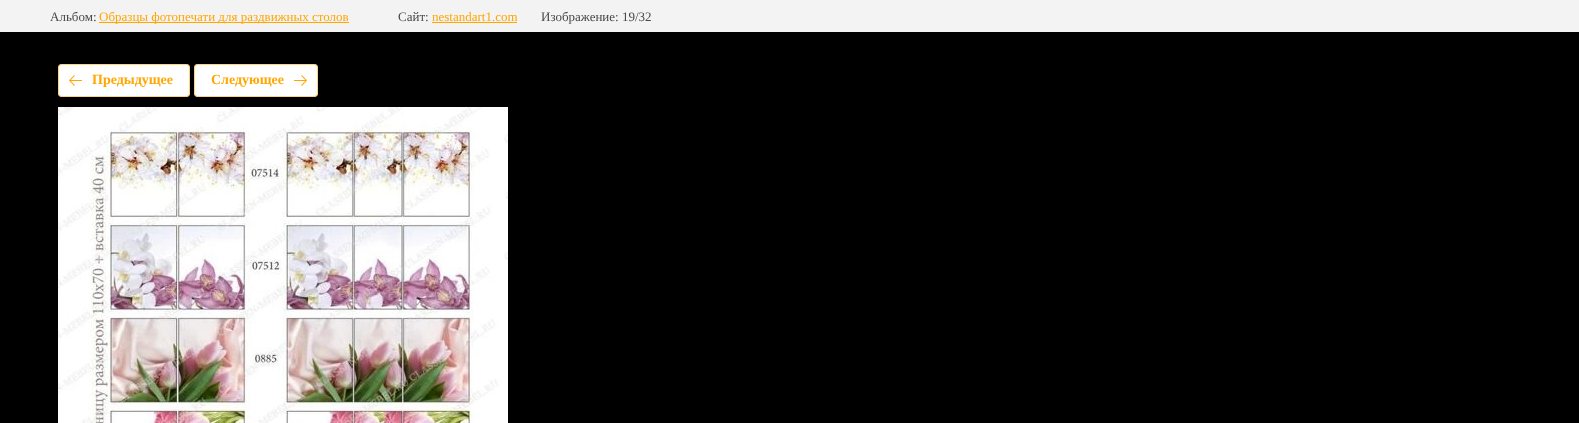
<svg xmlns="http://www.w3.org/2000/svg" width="1579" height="423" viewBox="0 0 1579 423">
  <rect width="100%" height="100%" fill="#000"/>
  <path d="M0 0h1579v32H0z" fill="#f3f3f3"/>
  <path d="M99 22h250v1H99z" fill="#ffa601"/>
  <path d="M432 22h85v1H432z" fill="#ffa601"/>
  <rect x="58" y="64" width="132" height="33" rx="4" fill="#fff"/>
  <rect x="58.5" y="64.5" width="131" height="32" rx="3.5" fill="none" stroke="#ffa60180"/>
  <image x="69" y="75" width="13" height="11" href="img/1.png"/>
  <rect x="194" y="64" width="124" height="33" rx="4" fill="#fff"/>
  <rect x="194.5" y="64.5" width="123" height="32" rx="3.5" fill="none" stroke="#ffa60180"/>
  <image x="294" y="75" width="13" height="11" href="img/2.png"/>
  <image x="58" y="107" width="450" height="316" href="img/3.png"/>
  <text x="50" y="21" font-family="Liberation Serif" font-size="13" fill="#484848">Альбом:</text>
  <text x="99" y="21" font-family="Liberation Serif" font-size="13" fill="#ffa601">Образцы фотопечати для раздвижных столов</text>
  <text x="398" y="21" font-family="Liberation Serif" font-size="13" fill="#484848">Сайт:</text>
  <text x="432" y="21" font-family="Liberation Serif" font-size="13" fill="#ffa601">nestandart1.com</text>
  <text x="541" y="21" font-family="Liberation Serif" font-size="13" fill="#484848">Изображение: 19/32</text>
  <g font-family="Liberation Serif" font-size="14" font-weight="bold" fill="#ffa601">
    <text x="92" y="84">Предыдущее</text>
    <text x="211" y="84">Следующее</text>
  </g>
</svg>
